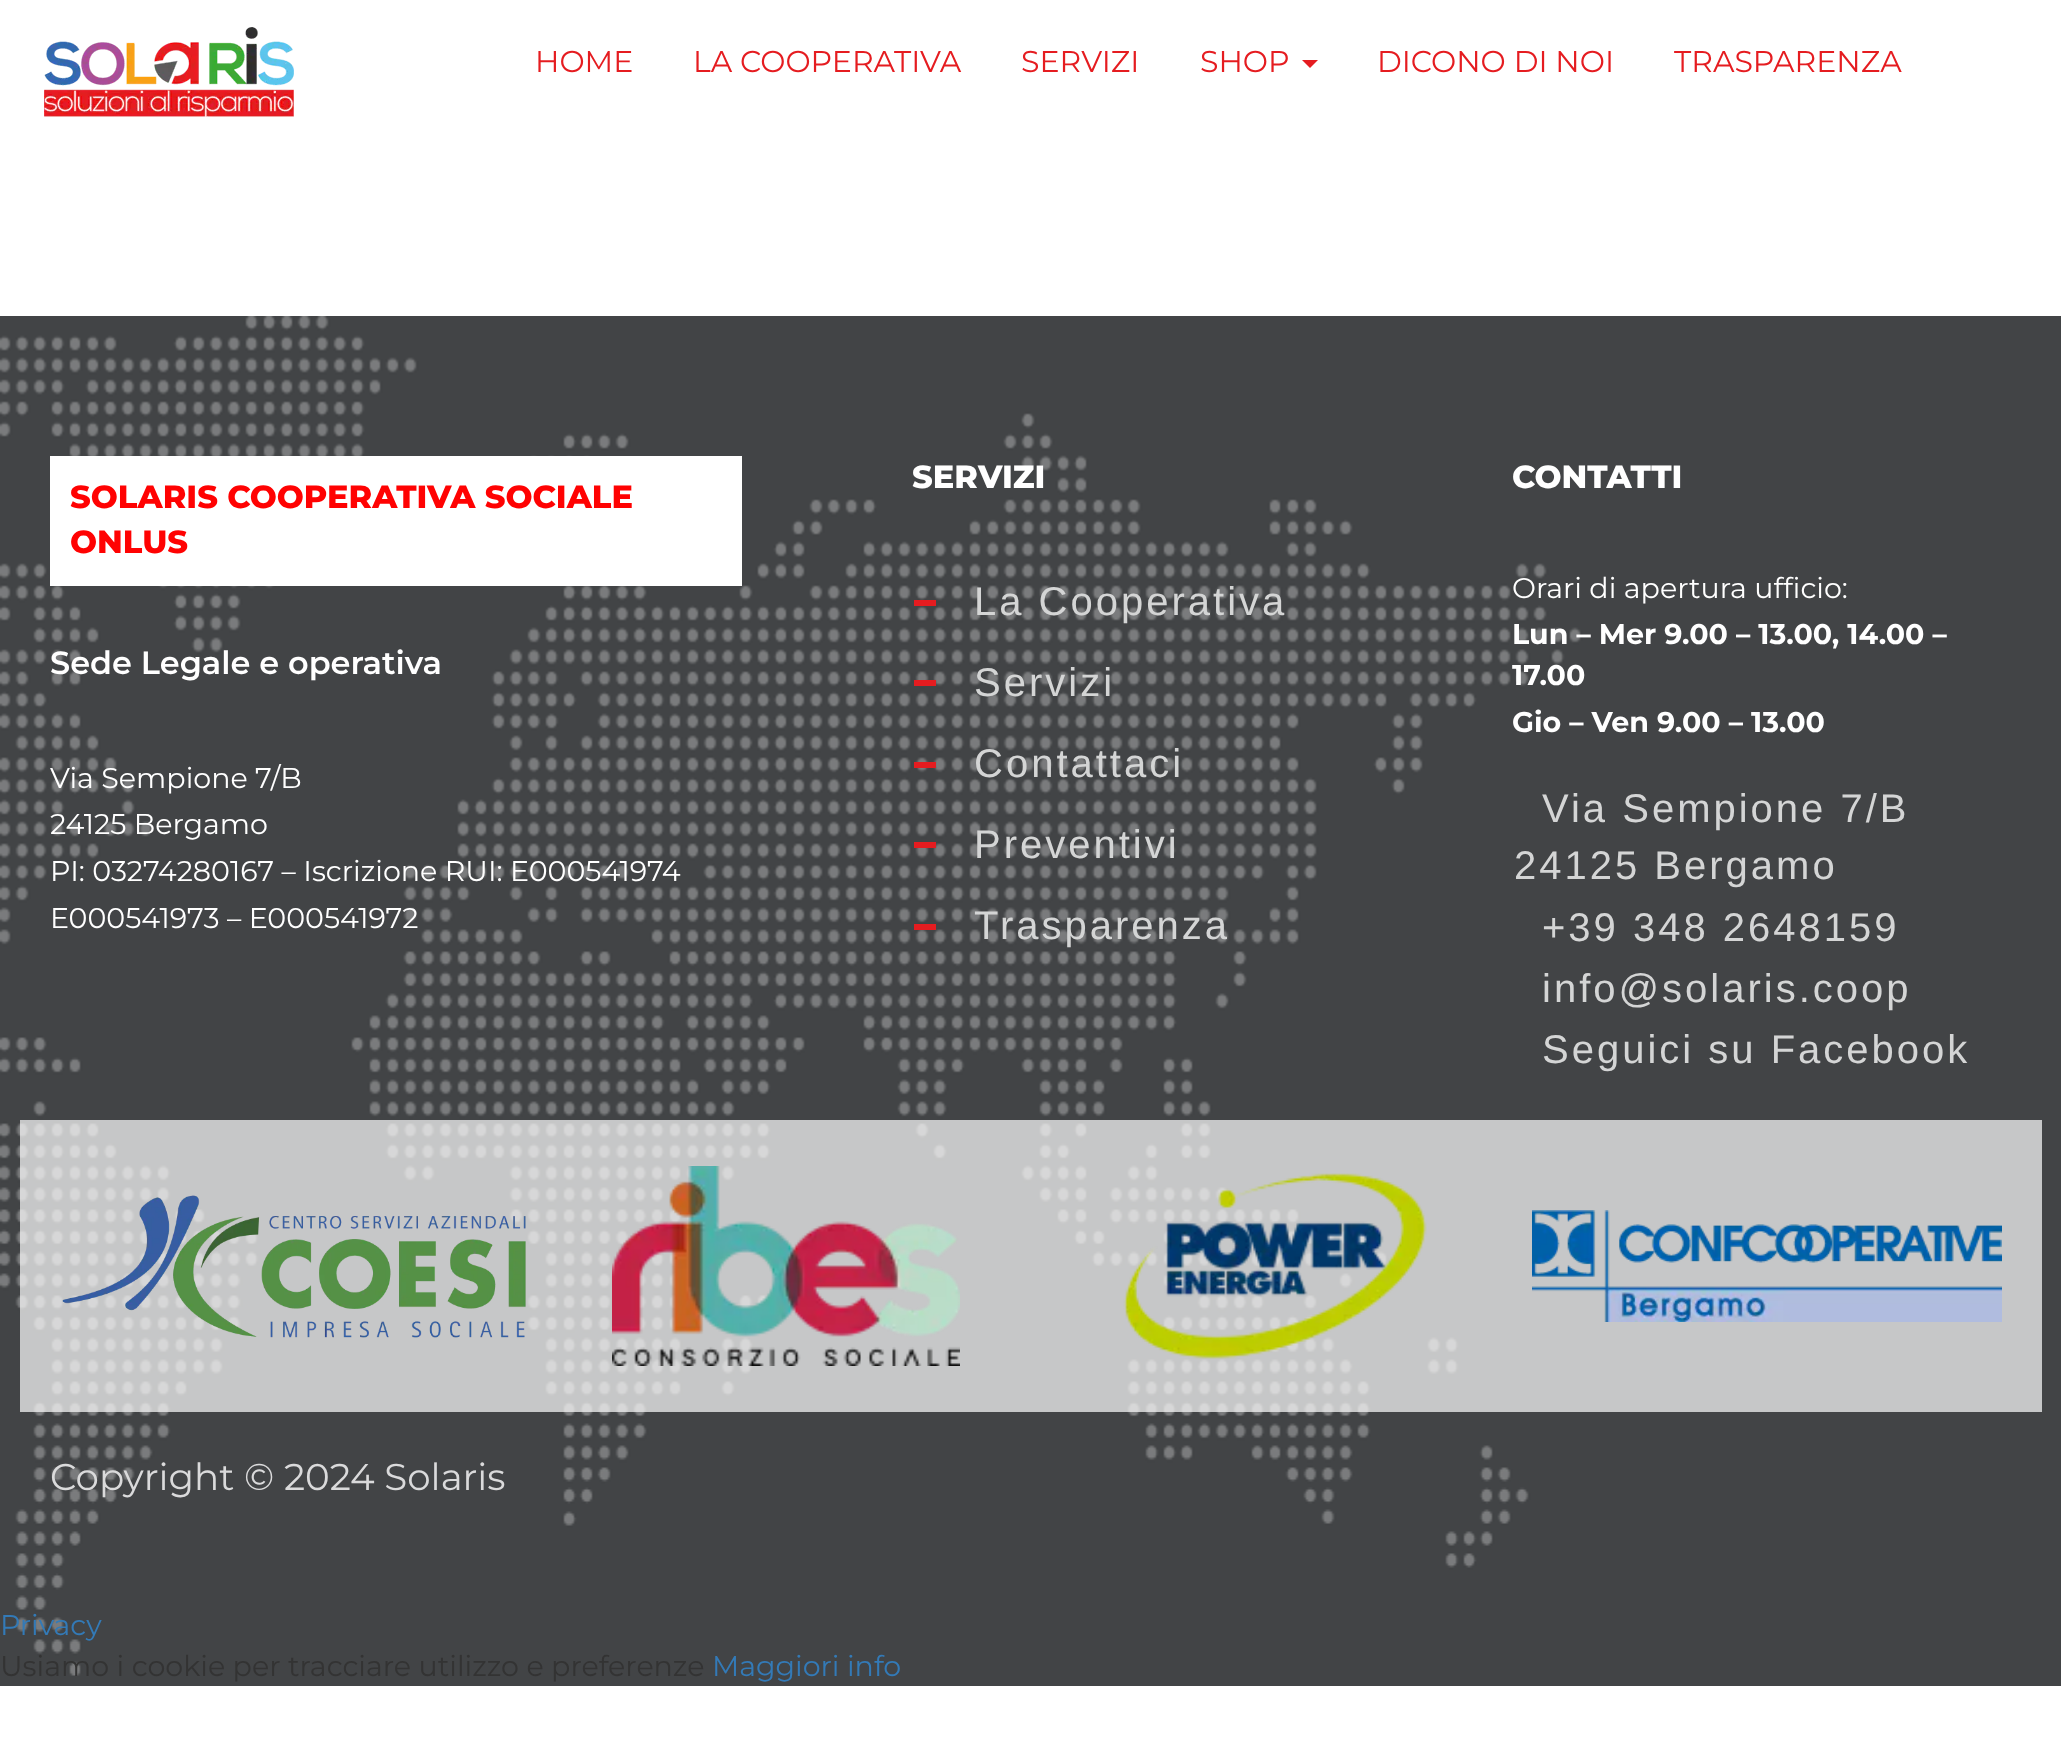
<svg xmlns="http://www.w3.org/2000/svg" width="2061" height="1753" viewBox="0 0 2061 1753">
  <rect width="100%" height="100%" fill="#fff"/>
  <image x="44" y="27" width="250" height="90" href="img/1.png"/>
  <path d="M1302 60H1318L1310 68Z" fill="#e51c20"/>
  <image x="0" y="316" width="2061" height="1370" href="img/2.png"/>
  <path d="M50 456h692v130H50z" fill="#fff"/>
  <path d="M914 600h22v6H914z" fill="#e51c20"/>
  <path d="M914 680h22v6H914z" fill="#e51c20"/>
  <path d="M914 762h22v6H914z" fill="#e51c20"/>
  <path d="M914 842h22v6H914z" fill="#e51c20"/>
  <path d="M914 924h22v6H914z" fill="#e51c20"/>
  <path d="M20 1120h2022v292H20z" fill="#ffffffb3"/>
  <image x="62" y="1195" width="464" height="143" href="img/3.png"/>
  <image x="612" y="1166" width="348" height="200" href="img/4.png"/>
  <image x="1123" y="1173" width="304" height="186" href="img/5.png"/>
  <image x="1532" y="1210" width="470" height="112" href="img/6.png"/>
  <g font-family="Montserrat" font-size="30" fill="#e51c20">
    <text x="535" y="72">HOME</text>
    <text x="693" y="72">LA COOPERATIVA</text>
    <text x="1021" y="72">SERVIZI</text>
    <text x="1200" y="72">SHOP</text>
    <text x="1377" y="72">DICONO DI NOI</text>
    <text x="1674" y="72">TRASPARENZA</text>
  </g>
  <g font-family="Montserrat" font-size="32" font-weight="800" fill="#ff0202">
    <text x="70" y="508">SOLARIS COOPERATIVA SOCIALE</text>
    <text x="70" y="553">ONLUS</text>
  </g>
  <text x="50" y="674" font-family="Montserrat" font-size="32" font-weight="600" fill="#fff">Sede Legale e operativa</text>
  <g font-family="Montserrat" font-size="28.5" fill="#fff">
    <text x="50" y="788">Via Sempione 7/B</text>
    <text x="50" y="834">24125 Bergamo</text>
    <text x="50" y="881">PI: 03274280167 – Iscrizione RUI: E000541974</text>
    <text x="50" y="928">E000541973 – E000541972</text>
  </g>
  <text x="912" y="488" font-family="Montserrat" font-size="32" font-weight="800" fill="#fff">SERVIZI</text>
  <g font-family="Liberation Sans" font-size="40" letter-spacing="3" fill="#d4d5d5">
    <text x="974" y="615">La Cooperativa</text>
    <text x="974" y="696">Servizi</text>
    <text x="974" y="777">Contattaci</text>
    <text x="974" y="858">Preventivi</text>
    <text x="974" y="939">Trasparenza</text>
  </g>
  <text x="1512" y="488" font-family="Montserrat" font-size="32" font-weight="800" fill="#fff">CONTATTI</text>
  <text x="1512" y="598" font-family="Montserrat" font-size="28.5" fill="#fff">Orari di apertura ufficio:</text>
  <g font-family="Montserrat" font-size="28.5" font-weight="bold" fill="#fff">
    <text x="1512" y="644">Lun – Mer 9.00 – 13.00, 14.00 –</text>
    <text x="1512" y="685">17.00</text>
    <text x="1512" y="732">Gio – Ven 9.00 – 13.00</text>
  </g>
  <g font-family="Liberation Sans" font-size="40" letter-spacing="3" fill="#d4d5d5">
    <text x="1542" y="822">Via Sempione 7/B</text>
    <text x="1514" y="879">24125 Bergamo</text>
    <text x="1542" y="941">+39 348 2648159</text>
    <text x="1542" y="1002">info@solaris.coop</text>
    <text x="1542" y="1063">Seguici su Facebook</text>
  </g>
  <text x="50" y="1490" font-family="Montserrat" font-size="37.25" fill="#dadadb">Copyright © 2024 Solaris</text>
  <text x="0" y="1635" font-family="Montserrat" font-size="28.5" fill="#337ab7">Privacy</text>
  <text x="0" y="1676" font-family="Montserrat" font-size="28.5" fill="#333">Usiamo i cookie per tracciare utilizzo e preferenze</text>
  <text x="712" y="1676" font-family="Montserrat" font-size="28.5" fill="#337ab7">Maggiori info</text>
</svg>
